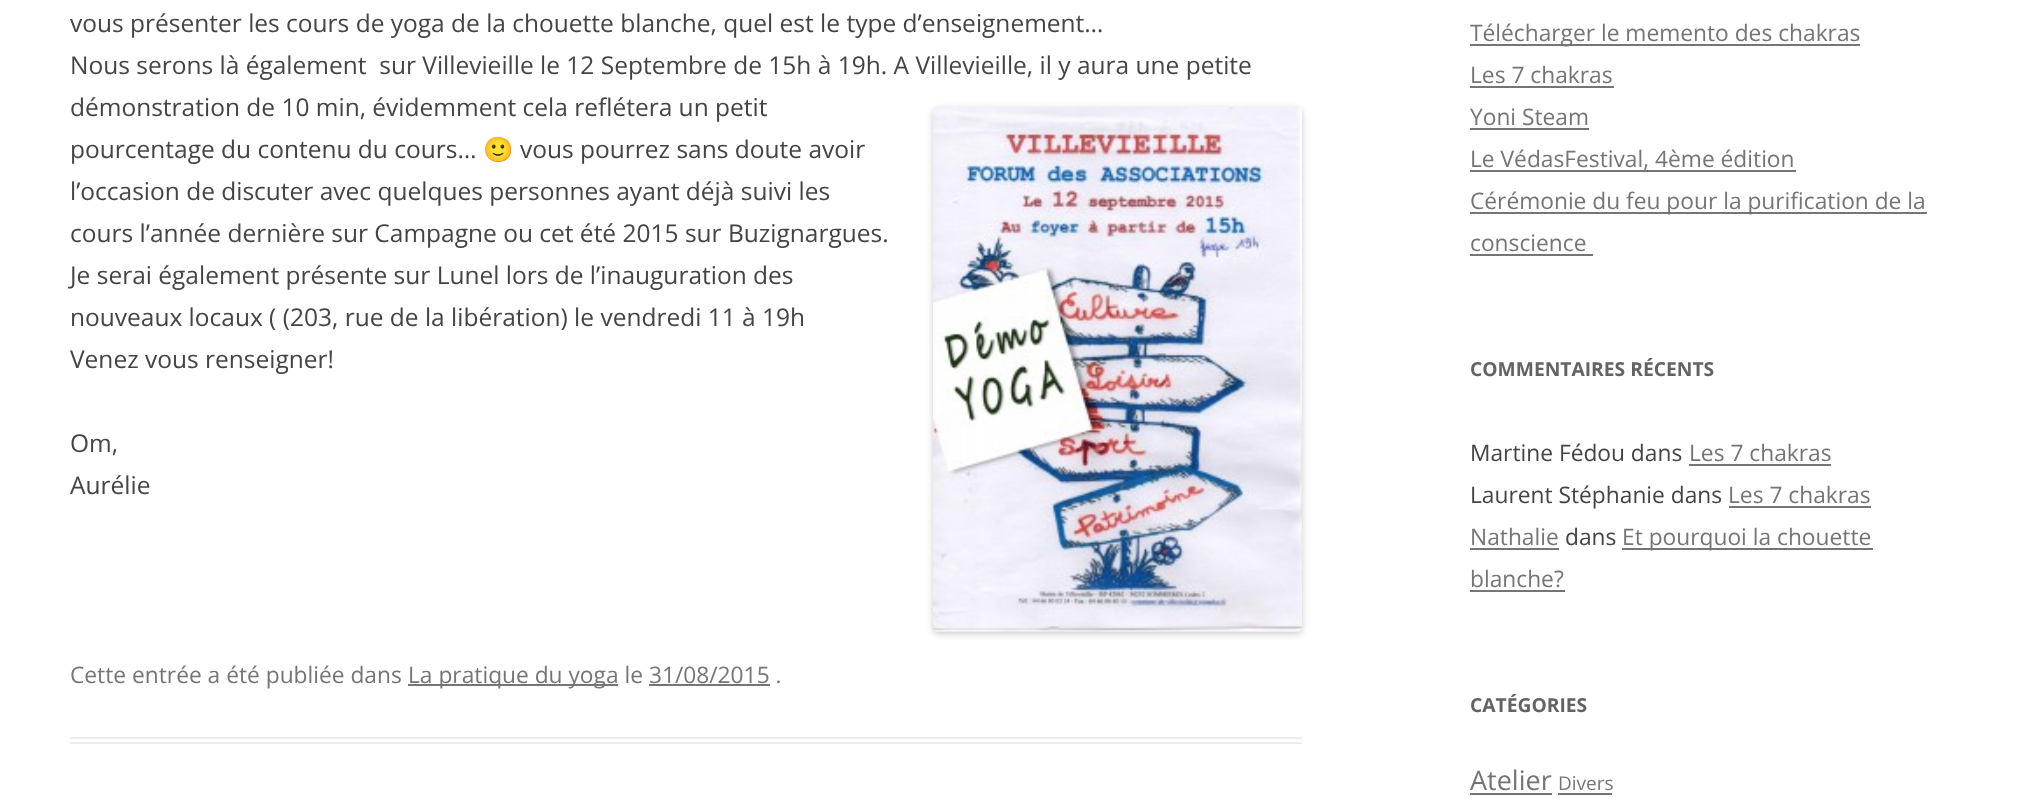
<svg xmlns="http://www.w3.org/2000/svg" width="2033" height="805" viewBox="0 0 2033 805">
  <rect width="100%" height="100%" fill="#fff"/>
  <path d="M70 737h1232v2H70z" fill="#ededed"/>
  <path d="M70 742h1232v2H70z" fill="#ededed"/>
  <rect x="933" y="109" width="369" height="525" rx="5" fill="#00000033" filter="blur(3.5px)"/>
  <image x="933" y="107" width="369" height="525" href="img/1.png"/>
  <path d="M408 684h210v2H408z" fill="#757575"/>
  <path d="M649 684h121v2H649z" fill="#757575"/>
  <path d="M1470 44h390v2H1470z" fill="#757575"/>
  <path d="M1470 86h144v2H1470z" fill="#757575"/>
  <path d="M1470 128h119v2H1470z" fill="#757575"/>
  <path d="M1470 170h326v2H1470z" fill="#757575"/>
  <path d="M1470 212h457v2H1470z" fill="#757575"/>
  <path d="M1470 254h123v2H1470z" fill="#757575"/>
  <path d="M1689 464h142v2H1689z" fill="#757575"/>
  <path d="M1729 506h142v2H1729z" fill="#757575"/>
  <path d="M1470 548h89v2H1470z" fill="#757575"/>
  <path d="M1622 548h251v2H1622z" fill="#757575"/>
  <path d="M1470 590h95v2H1470z" fill="#757575"/>
  <path d="M1470 793h82v2H1470z" fill="#757575"/>
  <path d="M1558 793h54v2H1558z" fill="#757575"/>
  <g font-family="Open Sans" font-size="24.5" fill="#444">
    <text x="70" y="32">vous présenter les cours de yoga de la chouette blanche, quel est le type d’enseignement…</text>
    <text x="70" y="74" xml:space="preserve">Nous serons là également  sur Villevieille le 12 Septembre de 15h à 19h. A Villevieille, il y aura une petite</text>
    <text x="70" y="116">démonstration de 10 min, évidemment cela reflétera un petit</text>
    <text x="70" y="158">pourcentage du contenu du cours…</text>
  </g>
  <text x="483" y="158" font-family="Noto Color Emoji" font-size="24.5" fill="#444">🙂</text>
  <g font-family="Open Sans" font-size="24.5" fill="#444">
    <text x="520" y="158">vous pourrez sans doute avoir</text>
    <text x="70" y="200">l’occasion de discuter avec quelques personnes ayant déjà suivi les</text>
    <text x="70" y="242">cours l’année dernière sur Campagne ou cet été 2015 sur Buzignargues.</text>
    <text x="70" y="284">Je serai également présente sur Lunel lors de l’inauguration des</text>
    <text x="70" y="326">nouveaux locaux ( (203, rue de la libération) le vendredi 11 à 19h</text>
    <text x="70" y="368">Venez vous renseigner!</text>
    <text x="70" y="452">Om,</text>
    <text x="70" y="494">Aurélie</text>
  </g>
  <g font-family="Open Sans" font-size="22.75" fill="#757575">
    <text x="70" y="683">Cette entrée a été publiée dans</text>
    <text x="408" y="683">La pratique du yoga le 31/08/2015 .</text>
    <text x="1470" y="41">Télécharger le memento des chakras</text>
    <text x="1470" y="83">Les 7 chakras</text>
    <text x="1470" y="125">Yoni Steam</text>
    <text x="1470" y="167">Le VédasFestival, 4ème édition</text>
    <text x="1470" y="209">Cérémonie du feu pour la purification de la</text>
    <text x="1470" y="251">conscience</text>
  </g>
  <text x="1470" y="376" font-family="Open Sans" font-size="19.25" font-weight="bold" fill="#636363">COMMENTAIRES RÉCENTS</text>
  <text x="1470" y="461" font-family="Open Sans" font-size="22.75" fill="#444">Martine Fédou dans</text>
  <text x="1689" y="461" font-family="Open Sans" font-size="22.75" fill="#757575">Les 7 chakras</text>
  <text x="1470" y="503" font-family="Open Sans" font-size="22.75" fill="#444">Laurent Stéphanie dans</text>
  <g font-family="Open Sans" font-size="22.75" fill="#757575">
    <text x="1728" y="503">Les 7 chakras</text>
    <text x="1470" y="545">Nathalie</text>
  </g>
  <text x="1565" y="545" font-family="Open Sans" font-size="22.75" fill="#444">dans</text>
  <g font-family="Open Sans" font-size="22.75" fill="#757575">
    <text x="1622" y="545">Et pourquoi la chouette</text>
    <text x="1470" y="587">blanche?</text>
  </g>
  <text x="1470" y="712" font-family="Open Sans" font-size="19.25" font-weight="bold" fill="#636363">CATÉGORIES</text>
  <text x="1470" y="790" font-family="Open Sans" font-size="27" fill="#757575">Atelier</text>
  <text x="1558" y="790" font-family="Open Sans" font-size="19" fill="#757575">Divers</text>
</svg>
